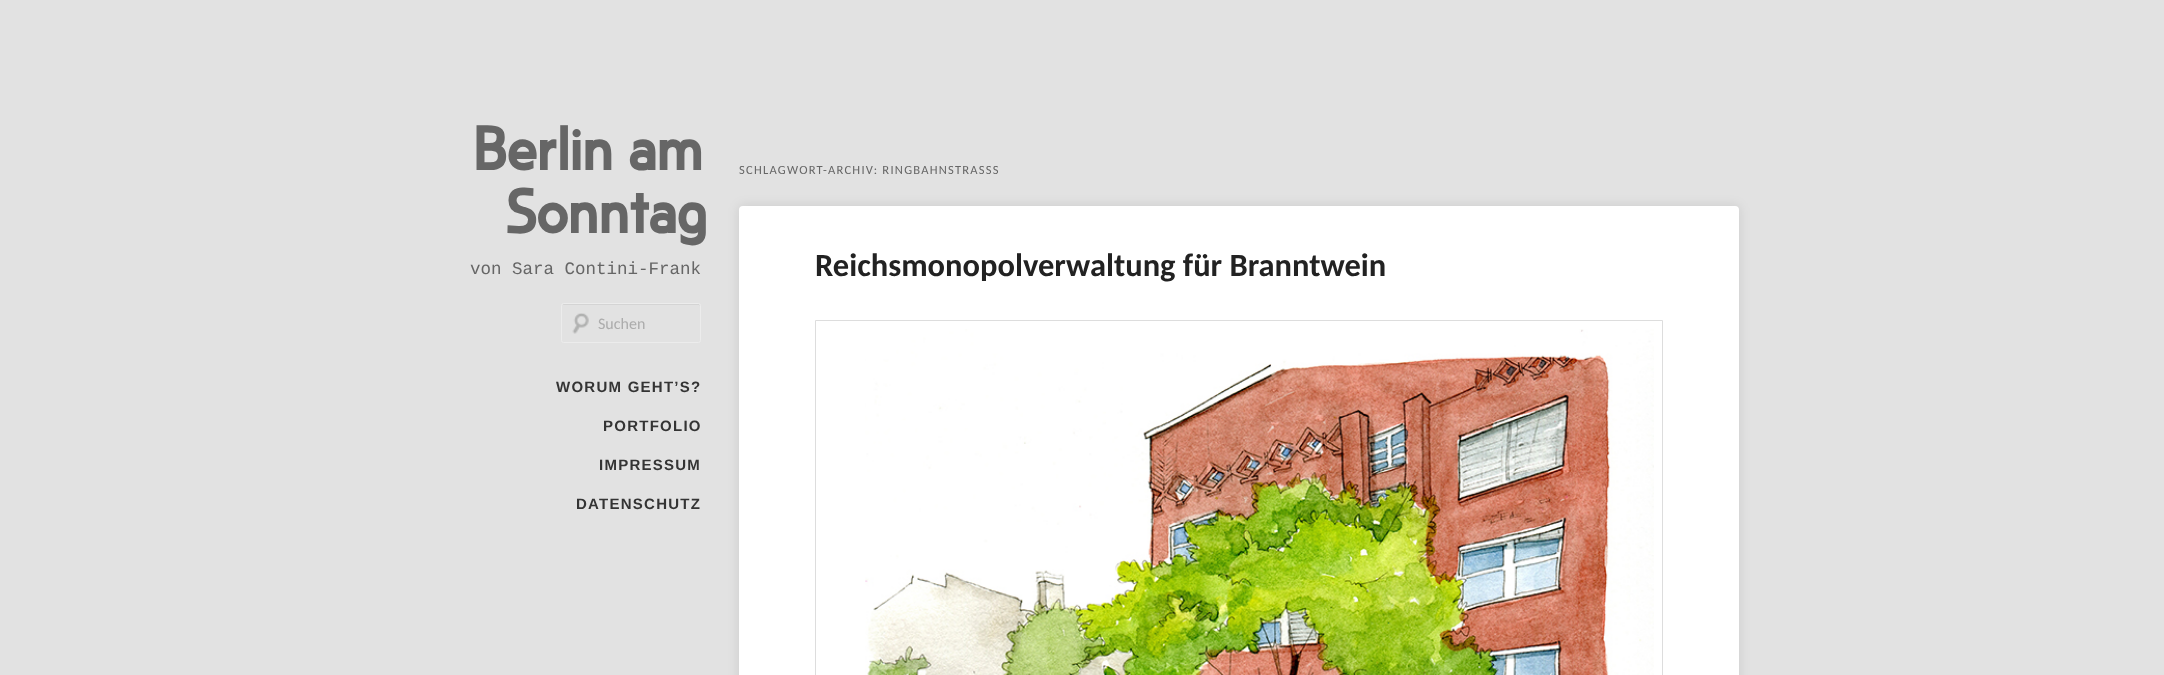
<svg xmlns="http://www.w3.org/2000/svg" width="2164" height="675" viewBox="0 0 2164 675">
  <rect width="100%" height="100%" fill="#e2e2e2"/>
  <image x="572" y="313" width="17" height="21" href="img/1.png"/>
  <path d="M564 305H699L700 306L699 304H564C563 304 563 305 563 305Z" fill="#d4d4d4"/>
  <rect x="561.5" y="303.5" width="139" height="39" rx="2" fill="none" stroke="#ececec"/>
  <rect x="739" y="206" width="1000" height="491" rx="4" fill="#0000001a" filter="blur(6px)"/>
  <rect x="739" y="206" width="1000" height="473" rx="4" fill="#fff"/>
  <path d="M815.5 320.5h847v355H815.5z" fill="none" stroke="#ddd"/>
  <image x="865" y="329" width="789" height="346" href="img/2.png"/>
  <g font-family="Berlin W" font-size="59" font-weight="bold" fill="#666">
    <text x="473" y="170">Berlin am</text>
    <text x="506" y="233">Sonntag</text>
  </g>
  <text x="470" y="274" font-family="Liberation Mono" font-size="17.5" fill="#666">von Sara Contini-Frank</text>
  <text x="598" y="329" font-family="Carlito" font-size="16" fill="#acacac">Suchen</text>
  <g font-family="Liberation Sans" font-size="15" font-weight="bold" letter-spacing="1.25" fill="#343434">
    <text x="556" y="392">WORUM GEHT’S?</text>
    <text x="603" y="431">PORTFOLIO</text>
    <text x="599" y="470">IMPRESSUM</text>
    <text x="576" y="509">DATENSCHUTZ</text>
  </g>
  <text x="739" y="174" font-family="Carlito" font-size="12.5" letter-spacing="1.25" fill="#666">SCHLAGWORT-ARCHIV: RINGBAHNSTRASSS</text>
  <text x="815" y="276" font-family="Carlito" font-size="32.5" font-weight="bold" fill="#222">Reichsmonopolverwaltung für Branntwein</text>
</svg>
